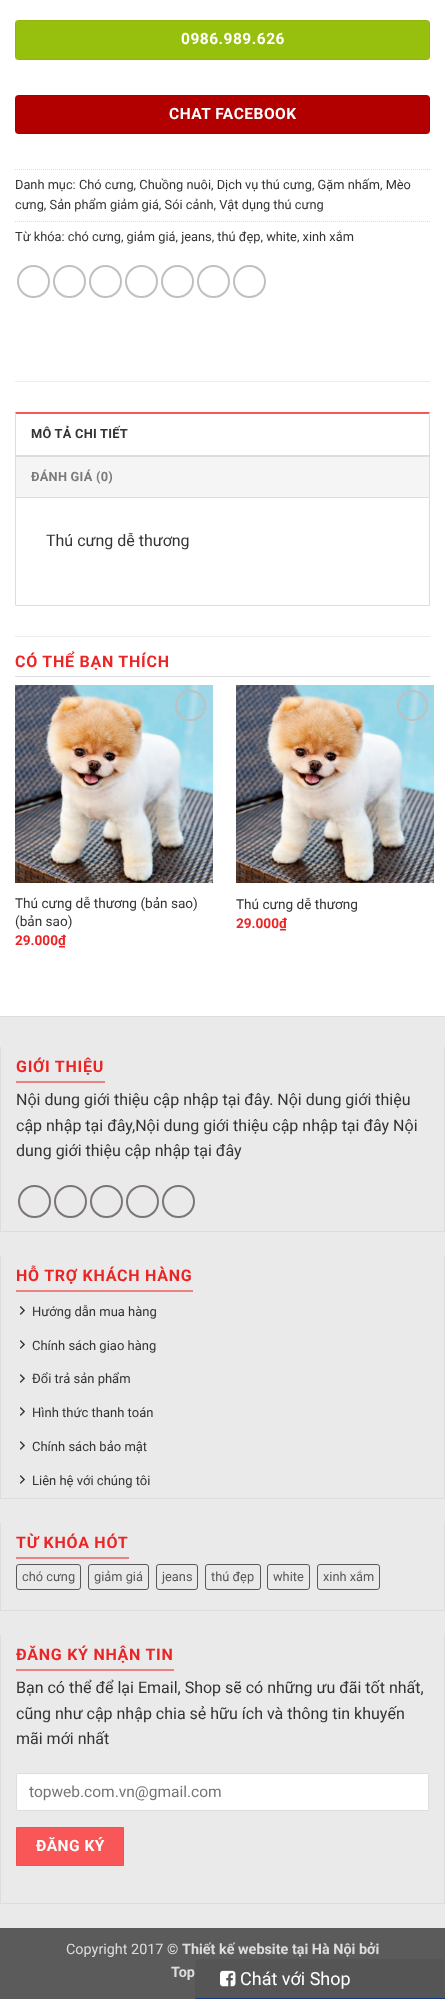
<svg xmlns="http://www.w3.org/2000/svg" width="445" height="1999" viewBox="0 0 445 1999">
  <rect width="100%" height="100%" fill="#fff"/>
  <rect x="15" y="20" width="415" height="40" rx="4" fill="#97bf0e"/>
  <path d="M15.5 20.5h414v39H15.5z" fill="none" stroke="#0000000d"/>
  <rect x="15" y="95" width="415" height="39" rx="4" fill="#b20000"/>
  <path d="M15.5 95.5h414v38H15.5z" fill="none" stroke="#0000000d"/>
  <path d="M15 169.5H430" fill="none" stroke="#ddd" stroke-dasharray="1 1"/>
  <path d="M15 221.5H430" fill="none" stroke="#ddd" stroke-dasharray="1 1"/>
  <circle cx="33.5" cy="281.5" r="15.5" fill="none" stroke="#c0c0c0" stroke-width="2"/>
  <circle cx="69.5" cy="281.5" r="15.5" fill="none" stroke="#c0c0c0" stroke-width="2"/>
  <circle cx="105.5" cy="281.5" r="15.5" fill="none" stroke="#c0c0c0" stroke-width="2"/>
  <circle cx="141.5" cy="281.5" r="15.5" fill="none" stroke="#c0c0c0" stroke-width="2"/>
  <circle cx="177.5" cy="281.5" r="15.5" fill="none" stroke="#c0c0c0" stroke-width="2"/>
  <circle cx="213.5" cy="281.5" r="15.5" fill="none" stroke="#c0c0c0" stroke-width="2"/>
  <circle cx="249.5" cy="281.5" r="15.5" fill="none" stroke="#c0c0c0" stroke-width="2"/>
  <path d="M15 381h415v1H15z" fill="#ececec"/>
  <path d="M15 412H430L429 414H16Z" fill="#f95757"/>
  <path d="M430 412V455H429V414Z" fill="#ddd"/>
  <path d="M15 455V412L16 414V455Z" fill="#ddd"/>
  <path d="M16 457h413v40H16z" fill="#f5f5f5"/>
  <path d="M15 455h415v2H15z" fill="#ddd"/>
  <path d="M429 455h1v42H429z" fill="#ddd"/>
  <path d="M15 455h1v42H15z" fill="#ddd"/>
  <path d="M15.5 497.5h414v108H15.5z" fill="none" stroke="#ddd"/>
  <path d="M15 636h415v1H15z" fill="#ececec"/>
  <path d="M15 676h415v1H15z" fill="#ddd"/>
  <image x="15" y="685" width="198" height="198" href="img/1.png"/>
  <circle cx="190.5" cy="705.5" r="14.5" fill="none" stroke="#c0c0c0" stroke-width="2"/>
  <image x="236" y="685" width="198" height="198" href="img/1.png"/>
  <circle cx="412.5" cy="705.5" r="14.5" fill="none" stroke="#c0c0c0" stroke-width="2"/>
  <path d="M0 1017h445v911H0z" fill="#eaeaea"/>
  <path d="M0 1016h445v1H0z" fill="#dedede"/>
  <path d="M444 1047h1v185H444z" fill="#ddd"/>
  <path d="M0 1231h445v1H0z" fill="#ddd"/>
  <path d="M0 1047h1v185H0z" fill="#ddd"/>
  <path d="M16 1081h89v2H16z" fill="#eb8181"/>
  <circle cx="34.5" cy="1201.5" r="15.5" fill="none" stroke="#7c7575" stroke-width="2"/>
  <circle cx="70.5" cy="1201.5" r="15.5" fill="none" stroke="#7c7575" stroke-width="2"/>
  <circle cx="106.5" cy="1201.5" r="15.5" fill="none" stroke="#7c7575" stroke-width="2"/>
  <circle cx="142.5" cy="1201.5" r="15.5" fill="none" stroke="#7c7575" stroke-width="2"/>
  <circle cx="178.5" cy="1201.5" r="15.5" fill="none" stroke="#7c7575" stroke-width="2"/>
  <path d="M444 1256h1v243H444z" fill="#ddd"/>
  <path d="M0 1498h445v1H0z" fill="#ddd"/>
  <path d="M0 1256h1v243H0z" fill="#ddd"/>
  <path d="M16 1290h177v2H16z" fill="#eb8181"/>
  <image x="20" y="1306" width="5" height="9" href="img/2.png"/>
  <image x="20" y="1340" width="5" height="9" href="img/2.png"/>
  <image x="20" y="1374" width="5" height="9" href="img/2.png"/>
  <image x="20" y="1407" width="5" height="9" href="img/2.png"/>
  <image x="20" y="1441" width="5" height="9" href="img/2.png"/>
  <image x="20" y="1475" width="5" height="9" href="img/2.png"/>
  <path d="M444 1523h1v88H444z" fill="#ddd"/>
  <path d="M0 1610h445v1H0z" fill="#ddd"/>
  <path d="M0 1523h1v88H0z" fill="#ddd"/>
  <path d="M16 1557h113v2H16z" fill="#eb8181"/>
  <rect x="16.5" y="1564.5" width="64" height="25" rx="2.5" fill="none" stroke="#585858"/>
  <rect x="88.5" y="1564.5" width="60" height="25" rx="2.5" fill="none" stroke="#585858"/>
  <rect x="156.5" y="1564.5" width="41" height="25" rx="2.5" fill="none" stroke="#585858"/>
  <rect x="205.5" y="1564.5" width="55" height="25" rx="2.5" fill="none" stroke="#585858"/>
  <rect x="267.5" y="1564.5" width="42" height="25" rx="2.5" fill="none" stroke="#585858"/>
  <rect x="317.5" y="1564.5" width="62" height="25" rx="2.5" fill="none" stroke="#585858"/>
  <path d="M444 1635h1v269H444z" fill="#ddd"/>
  <path d="M0 1903h445v1H0z" fill="#ddd"/>
  <path d="M0 1635h1v269H0z" fill="#ddd"/>
  <path d="M16 1669h158v2H16z" fill="#eb8181"/>
  <path d="M16.5 1773.5h412v37H16.5z" fill="#fff" stroke="#ddd"/>
  <path d="M16.5 1827.5h107v38H16.5z" fill="#f95757" stroke="#ed5353"/>
  <path d="M0 1928h445v71H0z" fill="#5b5b5b"/>
  <path d="M200 1959H440C443 1959 445 1961 445 1964V1999H195V1964C195 1961 197 1959 200 1959Z" fill="#555"/>
  <path d="M195 1998h250v1H195z" fill="#133783"/>
  <image x="220" y="1970" width="16" height="17" href="img/3.png"/>
  <g font-family="Roboto" font-size="15.5" font-weight="bold" letter-spacing="0.5" fill="#fff">
    <text x="181" y="44">0986.989.626</text>
    <text x="169" y="119">CHAT FACEBOOK</text>
  </g>
  <g font-family="Roboto" font-size="12.8" fill="#333">
    <text x="15" y="189">Danh mục: Chó cưng, Chuồng nuôi, Dịch vụ thú cưng, Gặm nhấm, Mèo</text>
    <text x="15" y="209">cưng, Sản phẩm giảm giá, Sói cảnh, Vật dụng thú cưng</text>
    <text x="15" y="241">Từ khóa: chó cưng, giảm giá, jeans, thú đẹp, white, xinh xắm</text>
  </g>
  <text x="31" y="438" font-family="Roboto" font-size="12.8" font-weight="bold" letter-spacing="0.25" fill="#333">MÔ TẢ CHI TIẾT</text>
  <text x="31" y="481" font-family="Roboto" font-size="12.8" font-weight="bold" letter-spacing="0.25" fill="#7b7b7b">ĐÁNH GIÁ (0)</text>
  <text x="46" y="546" font-family="Roboto" font-size="16" fill="#333">Thú cưng dễ thương</text>
  <text x="15" y="667" font-family="Roboto" font-size="16" font-weight="bold" letter-spacing="0.75" fill="#eb2525">CÓ THỂ BẠN THÍCH</text>
  <g font-family="Roboto" font-size="13.6" fill="#333">
    <text x="15" y="908">Thú cưng dễ thương (bản sao)</text>
    <text x="15" y="926">(bản sao)</text>
  </g>
  <text x="15" y="945" font-family="Roboto" font-size="13.6" font-weight="bold" fill="#eb2525">29.000₫</text>
  <text x="236" y="909" font-family="Roboto" font-size="13.6" fill="#333">Thú cưng dễ thương</text>
  <text x="236" y="928" font-family="Roboto" font-size="13.6" font-weight="bold" fill="#eb2525">29.000₫</text>
  <text x="16" y="1072" font-family="Roboto" font-size="16" font-weight="bold" letter-spacing="0.75" fill="#eb2525">GIỚI THIỆU</text>
  <g font-family="Roboto" font-size="16" fill="#333">
    <text x="16" y="1105">Nội dung giới thiệu cập nhập tại đây. Nội dung giới thiệu</text>
    <text x="16" y="1131">cập nhập tại đây,Nội dung giới thiệu cập nhập tại đây Nội</text>
    <text x="16" y="1156">dung giới thiệu cập nhập tại đây</text>
  </g>
  <text x="16" y="1281" font-family="Roboto" font-size="16" font-weight="bold" letter-spacing="0.75" fill="#eb2525">HỖ TRỢ KHÁCH HÀNG</text>
  <g font-family="Roboto" font-size="13" fill="#333">
    <text x="32" y="1316">Hướng dẫn mua hàng</text>
    <text x="32" y="1350">Chính sách giao hàng</text>
    <text x="32" y="1383">Đổi trả sản phẩm</text>
    <text x="32" y="1417">Hình thức thanh toán</text>
    <text x="32" y="1451">Chính sách bảo mật</text>
    <text x="32" y="1485">Liên hệ với chúng tôi</text>
  </g>
  <text x="16" y="1548" font-family="Roboto" font-size="16" font-weight="bold" letter-spacing="0.75" fill="#eb2525">TỪ KHÓA HÓT</text>
  <g font-family="Roboto" font-size="12.8" fill="#585858">
    <text x="22" y="1581">chó cưng</text>
    <text x="94" y="1581">giảm giá</text>
    <text x="162" y="1581">jeans</text>
    <text x="211" y="1581">thú đẹp</text>
    <text x="273" y="1581">white</text>
    <text x="323" y="1581">xinh xắm</text>
  </g>
  <text x="16" y="1660" font-family="Roboto" font-size="16" font-weight="bold" letter-spacing="0.75" fill="#eb2525">ĐĂNG KÝ NHẬN TIN</text>
  <g font-family="Roboto" font-size="16" fill="#333">
    <text x="16" y="1693">Bạn có thể để lại Email, Shop sẽ có những ưu đãi tốt nhất,</text>
    <text x="16" y="1719">cũng như cập nhập chia sẻ hữu ích và thông tin khuyến</text>
    <text x="16" y="1744">mãi mới nhất</text>
  </g>
  <text x="29" y="1797" font-family="Roboto" font-size="15.5" fill="#757575">topweb.com.vn@gmail.com</text>
  <text x="36" y="1851" font-family="Roboto" font-size="15.5" font-weight="bold" letter-spacing="0.5" fill="#fff">ĐĂNG KÝ</text>
  <text x="66" y="1954" font-family="Roboto" font-size="14.4" fill="#ddd">Copyright 2017 ©</text>
  <g font-family="Roboto" font-size="14.4" font-weight="bold" fill="#ddd">
    <text x="182" y="1954">Thiết kế website tại Hà Nội bởi</text>
    <text x="171" y="1977">Top</text>
  </g>
  <text x="240" y="1985" font-family="Roboto" font-size="18" fill="#fff">Chát với Shop</text>
</svg>
